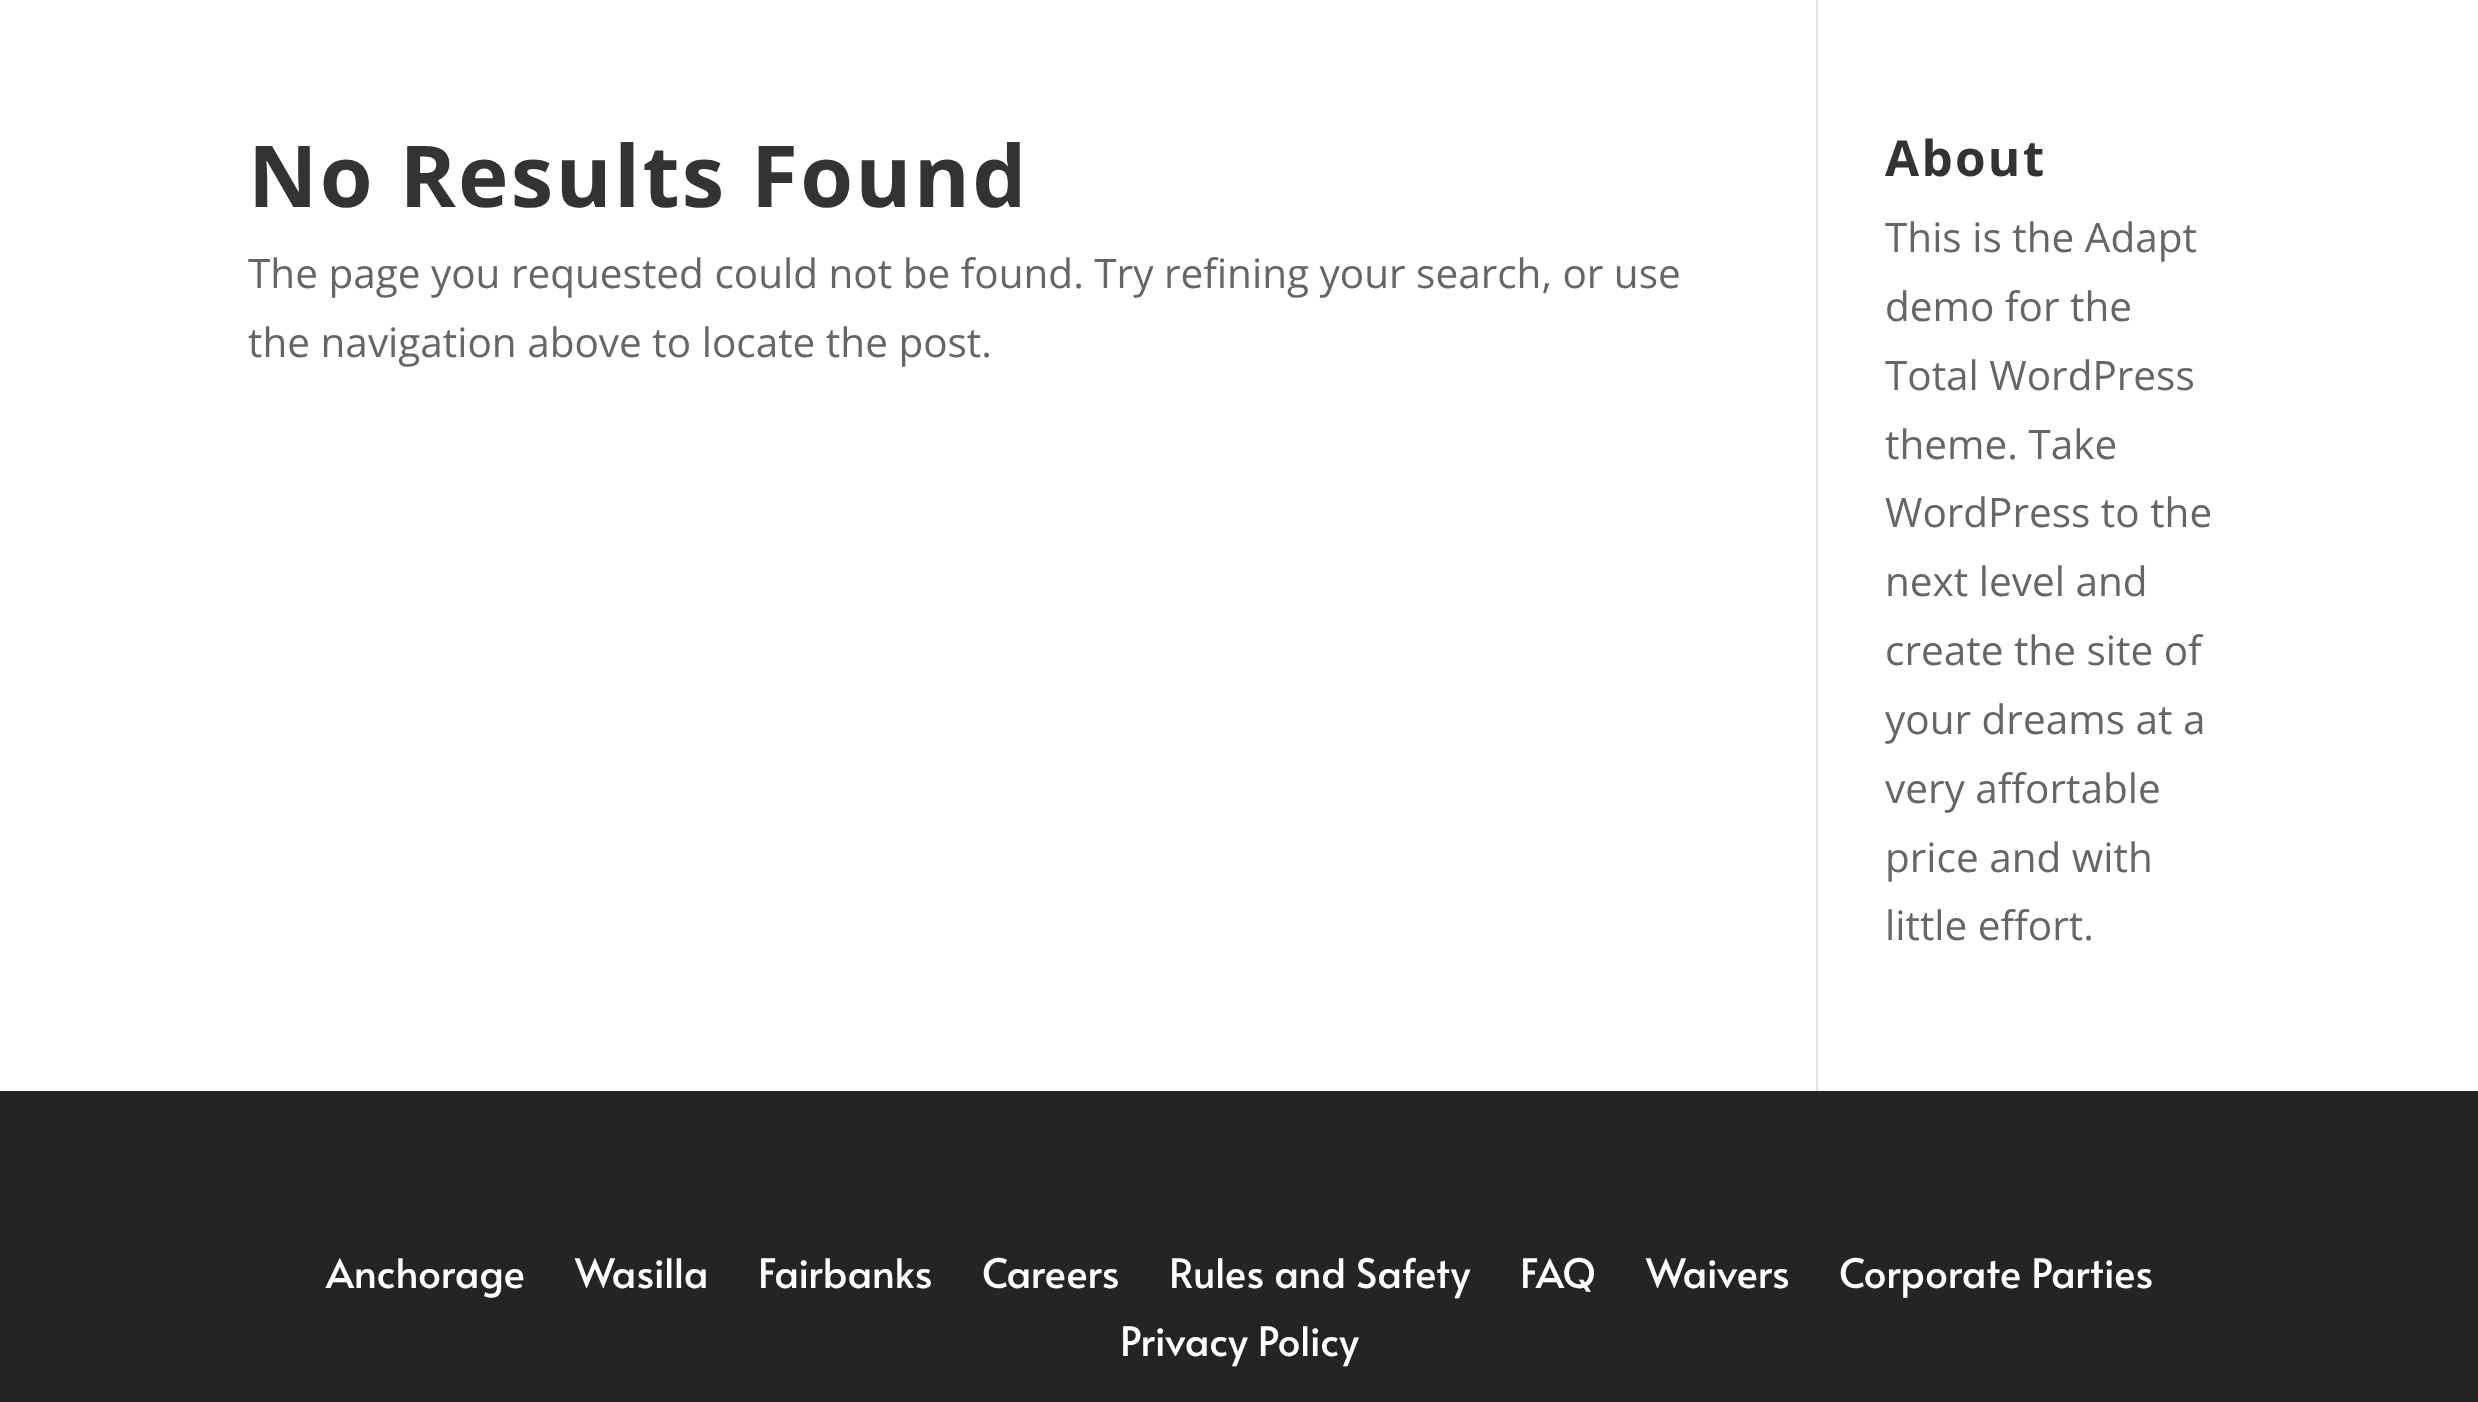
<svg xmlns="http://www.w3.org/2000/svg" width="2478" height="1402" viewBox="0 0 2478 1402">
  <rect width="100%" height="100%" fill="#fff"/>
  <path d="M1816 0h2v1091H1816z" fill="#e2e2e2"/>
  <path d="M0 1091h2478v311H0z" fill="#242424"/>
  <text x="248" y="207" font-family="Open Sans" font-size="85.5" font-weight="bold" letter-spacing="2.25" fill="#333">No Results Found</text>
  <g font-family="Open Sans" font-size="40.5" fill="#666">
    <text x="248" y="288">The page you requested could not be found. Try refining your search, or use</text>
    <text x="248" y="357">the navigation above to locate the post.</text>
  </g>
  <text x="1885" y="176" font-family="Open Sans" font-size="49.5" font-weight="bold" letter-spacing="2.25" fill="#333">About</text>
  <g font-family="Open Sans" font-size="40.5" fill="#666">
    <text x="1885" y="252">This is the Adapt</text>
    <text x="1885" y="321">demo for the</text>
    <text x="1885" y="390">Total WordPress</text>
    <text x="1885" y="459">theme. Take</text>
    <text x="1885" y="527">WordPress to the</text>
    <text x="1885" y="596">next level and</text>
    <text x="1885" y="665">create the site of</text>
    <text x="1885" y="734">your dreams at a</text>
    <text x="1885" y="803">very affortable</text>
    <text x="1885" y="872">price and with</text>
    <text x="1885" y="940">little effort.</text>
  </g>
  <g font-family="Alata" font-size="40.5" fill="#fff">
    <text x="326" y="1288">Anchorage</text>
    <text x="575" y="1288">Wasilla</text>
    <text x="758" y="1288">Fairbanks</text>
    <text x="982" y="1288">Careers</text>
    <text x="1169" y="1288">Rules and Safety</text>
    <text x="1520" y="1288">FAQ</text>
    <text x="1646" y="1288">Waivers</text>
    <text x="1839" y="1288">Corporate Parties</text>
    <text x="1120" y="1356">Privacy Policy</text>
  </g>
</svg>
